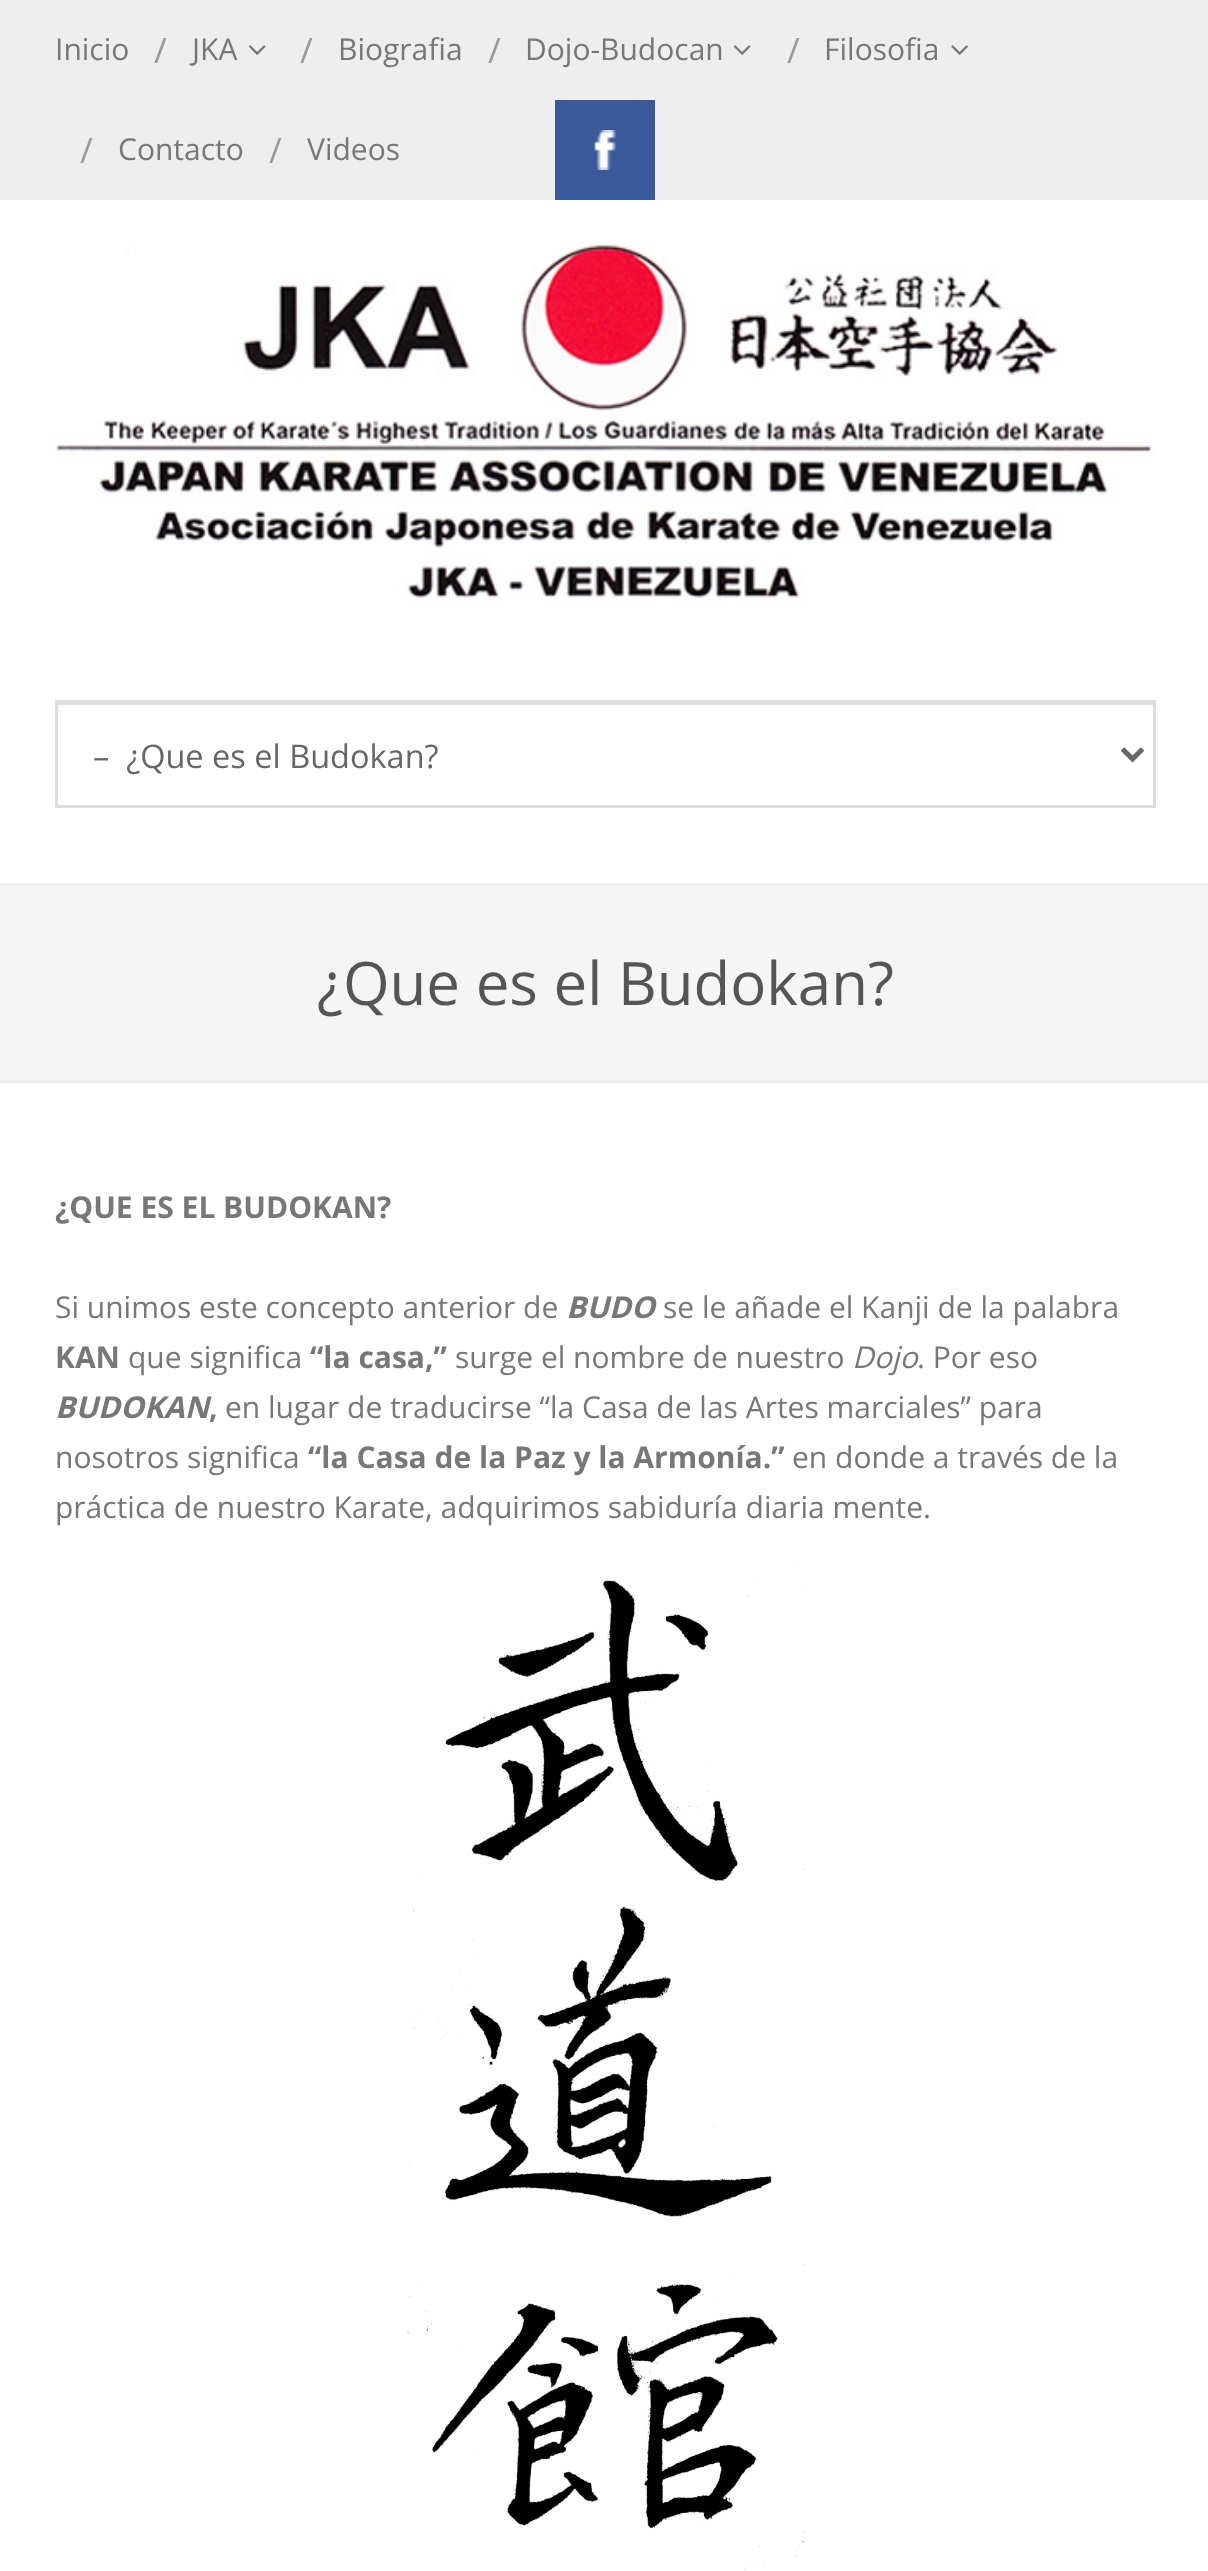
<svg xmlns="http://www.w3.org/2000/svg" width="1208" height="2571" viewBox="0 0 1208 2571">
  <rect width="100%" height="100%" fill="#fff"/>
  <path d="M0 0h1208v200H0z" fill="#eee"/>
  <image x="248" y="45" width="18" height="10" href="img/1.png"/>
  <image x="733" y="45" width="18" height="10" href="img/1.png"/>
  <image x="951" y="45" width="17" height="10" href="img/2.png"/>
  <path d="M555 100h100v100H555z" fill="#3b5998"/>
  <image x="594" y="130" width="22" height="40" href="img/3.png"/>
  <image x="55" y="241" width="1100" height="366" href="img/4.png"/>
  <path d="M55 700h1100v5H55z" fill="#ddd"/>
  <path d="M1153 700h3v108H1153z" fill="#ddd"/>
  <path d="M55 805h1100v3H55z" fill="#ddd"/>
  <path d="M55 700h3v108H55z" fill="#ddd"/>
  <path d="M1122.5 749L1132.5 759L1142.5 749" fill="none" stroke="#666" stroke-width="5"/>
  <path d="M0 886h1208v194H0z" fill="#f5f5f5"/>
  <path d="M0 883h1208v3H0z" fill="#eee"/>
  <path d="M0 1080h1208v3H0z" fill="#eee"/>
  <image x="407" y="1565" width="398" height="1005" href="img/5.png"/>
  <text x="55" y="60" font-family="Open Sans" font-size="30" fill="#777">Inicio</text>
  <text x="154" y="63" font-family="Open Sans" font-size="35" fill="#999">/</text>
  <text x="192" y="60" font-family="Open Sans" font-size="30" fill="#777">JKA</text>
  <text x="300" y="63" font-family="Open Sans" font-size="35" fill="#999">/</text>
  <text x="338" y="60" font-family="Open Sans" font-size="30" fill="#777">Biografia</text>
  <text x="488" y="63" font-family="Open Sans" font-size="35" fill="#999">/</text>
  <text x="525" y="60" font-family="Open Sans" font-size="30" fill="#777">Dojo-Budocan</text>
  <text x="787" y="63" font-family="Open Sans" font-size="35" fill="#999">/</text>
  <text x="824" y="60" font-family="Open Sans" font-size="30" fill="#777">Filosofia</text>
  <text x="80" y="163" font-family="Open Sans" font-size="35" fill="#999">/</text>
  <text x="118" y="160" font-family="Open Sans" font-size="30" fill="#777">Contacto</text>
  <text x="269" y="163" font-family="Open Sans" font-size="35" fill="#999">/</text>
  <text x="307" y="160" font-family="Open Sans" font-size="30" fill="#777">Videos</text>
  <text x="93" y="768" font-family="Open Sans" font-size="32.5" fill="#666" xml:space="preserve">–  ¿Que es el Budokan?</text>
  <text x="317" y="1005" font-family="Open Sans" font-size="60" fill="#555">¿Que es el Budokan?</text>
  <text x="55" y="1218" font-family="Open Sans" font-size="30" font-weight="bold" fill="#777">¿QUE ES EL BUDOKAN?</text>
  <text x="55" y="1318" font-family="Open Sans" font-size="30" fill="#777">Si unimos este concepto anterior de</text>
  <text x="566" y="1318" font-family="Open Sans" font-size="30" font-weight="bold" font-style="italic" fill="#777">BUDO</text>
  <text x="663" y="1318" font-family="Open Sans" font-size="30" fill="#777">se le añade el Kanji de la palabra</text>
  <text x="55" y="1368" font-family="Open Sans" font-size="30" font-weight="bold" fill="#777">KAN</text>
  <text x="128" y="1368" font-family="Open Sans" font-size="30" fill="#777">que significa</text>
  <text x="310" y="1368" font-family="Open Sans" font-size="30" font-weight="bold" fill="#777">“la casa,”</text>
  <text x="455" y="1368" font-family="Open Sans" font-size="30" fill="#777">surge el nombre de nuestro</text>
  <text x="852" y="1368" font-family="Open Sans" font-size="30" font-style="italic" fill="#777">Dojo</text>
  <text x="917" y="1368" font-family="Open Sans" font-size="30" fill="#777">. Por eso</text>
  <text x="55" y="1418" font-family="Open Sans" font-size="30" font-weight="bold" font-style="italic" fill="#777">BUDOKAN</text>
  <text x="209" y="1418" font-family="Open Sans" font-size="30" font-weight="bold" fill="#777">,</text>
  <g font-family="Open Sans" font-size="30" fill="#777">
    <text x="225" y="1418">en lugar de traducirse “la Casa de las Artes marciales” para</text>
    <text x="55" y="1468">nosotros significa</text>
  </g>
  <text x="308" y="1468" font-family="Open Sans" font-size="30" font-weight="bold" fill="#777">“la Casa de la Paz y la Armonía.”</text>
  <g font-family="Open Sans" font-size="30" fill="#777">
    <text x="792" y="1468">en donde a través de la</text>
    <text x="55" y="1518">práctica de nuestro Karate, adquirimos sabiduría diaria mente.</text>
  </g>
</svg>
